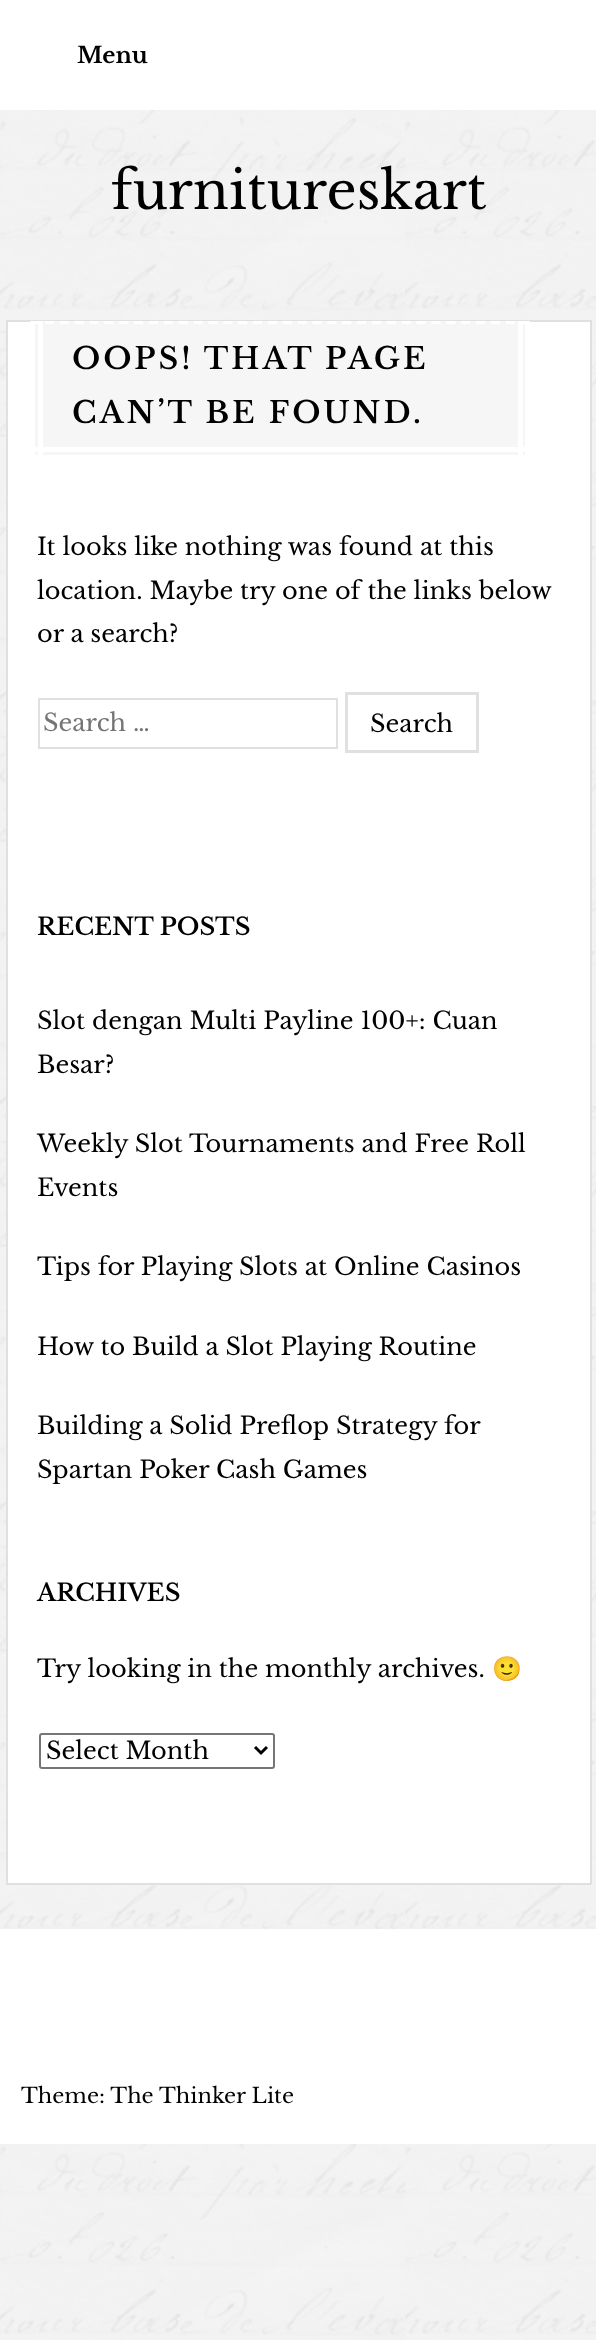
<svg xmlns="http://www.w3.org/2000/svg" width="596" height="2340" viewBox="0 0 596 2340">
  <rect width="100%" height="100%" fill="#f6f6f6"/>
  <image x="0" y="110" width="596" height="2230" href="img/1.png"/>
  <path d="M0 0h596v110H0z" fill="#fff"/>
  <path d="M8 322h582v1561H8z" fill="#fff"/>
  <path d="M6 320h585v2H6z" fill="#e0e0e0"/>
  <path d="M590 320h2v1564H590z" fill="#e0e0e0"/>
  <path d="M6 320h2v139H6z" fill="#e0e0e0"/>
  <path d="M35 321h490v134H35z" fill="#f6f6f6"/>
  <path d="M30 322.5H529.5" fill="none" stroke="#fff" stroke-width="3" stroke-dasharray="9 5.87"/>
  <path d="M518 321h5v138H518z" fill="#fff"/>
  <path d="M529 321h1v1H529z" fill="#fff"/>
  <path d="M30 447h500v5H30z" fill="#fff"/>
  <path d="M38 321h5v138H38z" fill="#fff"/>
  <path d="M6 1883h585v2H6z" fill="#e0e0e0"/>
  <path d="M6 459h2v1425H6z" fill="#e0e0e0"/>
  <path d="M39 699h298v49H39z" fill="none" stroke="#e0e0e0" stroke-width="2"/>
  <path d="M346.5 693.5h131v58H346.5z" fill="none" stroke="#e0e0e0" stroke-width="3"/>
  <rect x="40" y="1734" width="234" height="34" rx="2" fill="none" stroke="#767676" stroke-width="2"/>
  <path d="M255 1747L261 1753L267 1747" fill="none" stroke="#000" stroke-width="3"/>
  <path d="M0 1929h596v215H0z" fill="#fff"/>
  <text x="77" y="63" font-family="Libre Baskerville" font-size="22.5" font-weight="bold" fill="#000">Menu</text>
  <text x="111" y="209" font-family="Libre Baskerville" font-size="52.5" fill="#000">furnitureskart</text>
  <g font-family="Libre Baskerville" font-size="30" font-weight="600" letter-spacing="3" fill="#000">
    <text x="72" y="369">OOPS! THAT PAGE</text>
    <text x="72" y="423">CAN’T BE FOUND.</text>
  </g>
  <g font-family="Libre Baskerville" font-size="24" fill="#000">
    <text x="37" y="555">It looks like nothing was found at this</text>
    <text x="37" y="599">location. Maybe try one of the links below</text>
    <text x="37" y="642">or a search?</text>
  </g>
  <text x="43" y="731" font-family="Libre Baskerville" font-size="24" fill="#757575">Search …</text>
  <text x="370" y="732" font-family="Libre Baskerville" font-size="24" fill="#000">Search</text>
  <text x="37" y="935" font-family="Libre Baskerville" font-size="24" font-weight="600" fill="#000">RECENT POSTS</text>
  <g font-family="Libre Baskerville" font-size="24" fill="#000">
    <text x="37" y="1029">Slot dengan Multi Payline 100+: Cuan</text>
    <text x="37" y="1073">Besar?</text>
    <text x="37" y="1152">Weekly Slot Tournaments and Free Roll</text>
    <text x="37" y="1196">Events</text>
    <text x="37" y="1275">Tips for Playing Slots at Online Casinos</text>
    <text x="37" y="1355">How to Build a Slot Playing Routine</text>
    <text x="37" y="1434">Building a Solid Preflop Strategy for</text>
    <text x="37" y="1478">Spartan Poker Cash Games</text>
  </g>
  <text x="37" y="1601" font-family="Libre Baskerville" font-size="24" font-weight="600" fill="#000">ARCHIVES</text>
  <text x="37" y="1677" font-family="Libre Baskerville" font-size="24" fill="#000">Try looking in the monthly archives.</text>
  <text x="492" y="1677" font-family="Noto Color Emoji" font-size="24" fill="#000">🙂</text>
  <text x="46" y="1759" font-family="Libre Baskerville" font-size="24" fill="#000">Select Month</text>
  <text x="21" y="2103" font-family="Libre Baskerville" font-size="21" fill="#000">Theme: The Thinker Lite</text>
</svg>
